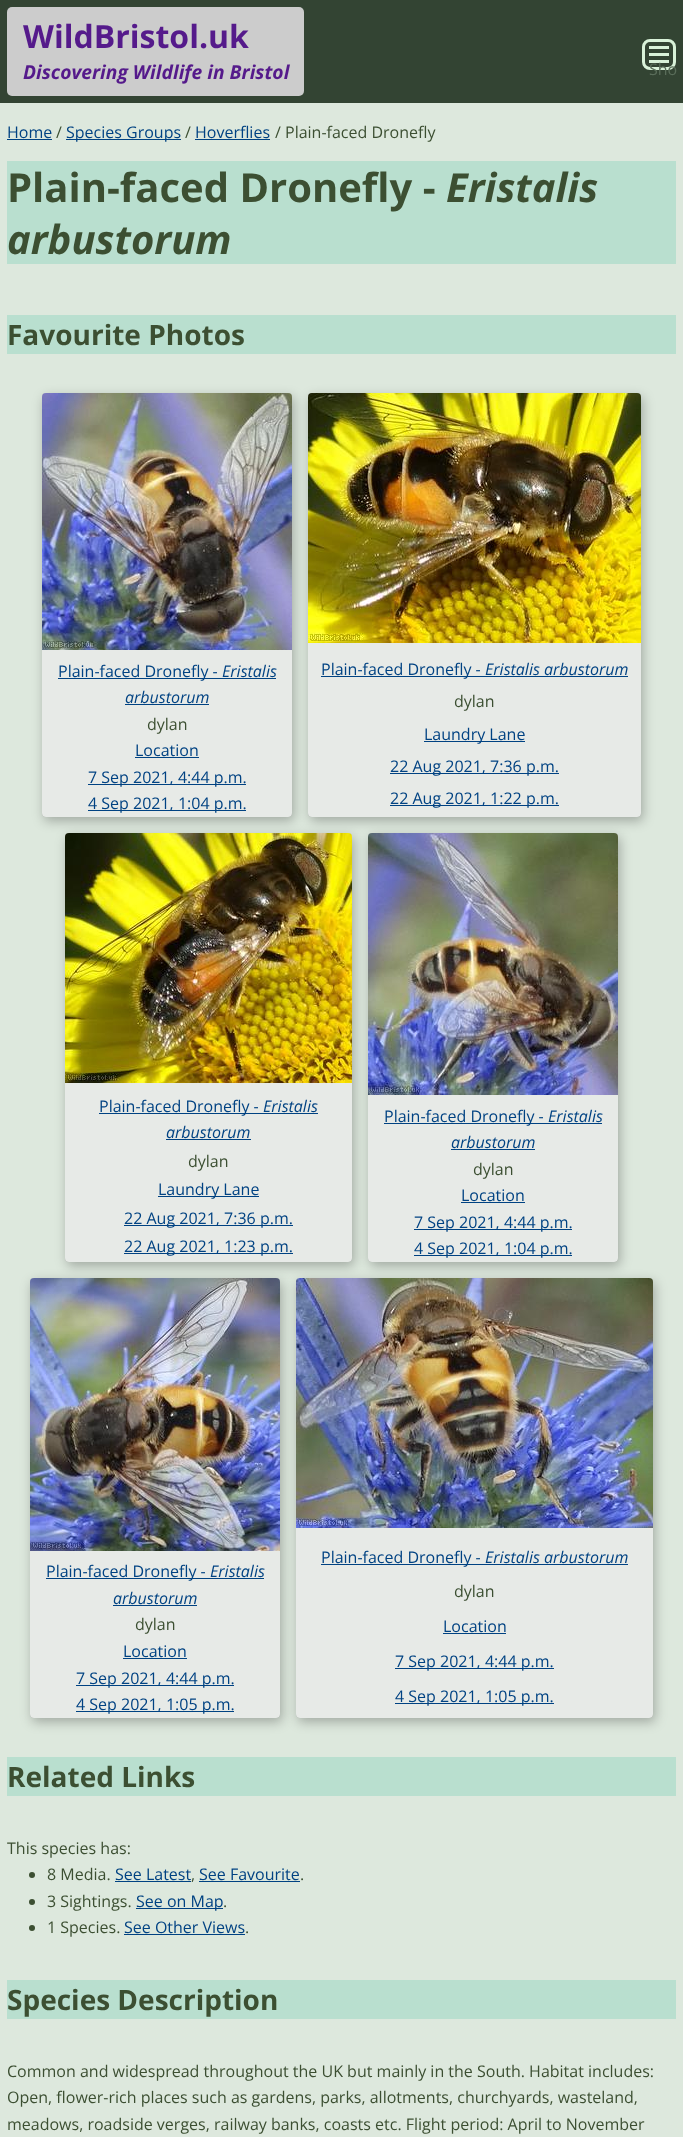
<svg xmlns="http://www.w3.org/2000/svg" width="683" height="2137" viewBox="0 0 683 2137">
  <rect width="100%" height="100%" fill="#343"/>
  <rect x="7" y="7" width="297" height="89" rx="5" fill="#ccc"/>
  <rect x="643.5" y="40.5" width="31" height="28" rx="6.5" fill="none" stroke="#d9f2d9" stroke-width="3"/>
  <path d="M649 46h20v3H649z" fill="#d9f2d9"/>
  <path d="M649 53h20v3H649z" fill="#d9f2d9"/>
  <path d="M649 60h20v3H649z" fill="#d9f2d9"/>
  <path d="M0 103h683v2034H0z" fill="#dde8dd"/>
  <path d="M7 139h45v1H7z" fill="#004282"/>
  <path d="M66 139h115v1H66z" fill="#004282"/>
  <path d="M195 139h75v1H195z" fill="#004282"/>
  <path d="M7 161h669v103H7z" fill="#b9dfcf"/>
  <path d="M7 315h669v39H7z" fill="#b9dfcf"/>
  <rect x="44" y="397" width="250" height="424" rx="4" fill="#00000045" filter="blur(6px)"/>
  <rect x="42" y="393" width="250" height="424" rx="4" fill="#00000045" filter="blur(0.5px)"/>
  <rect x="42" y="393" width="250" height="424" rx="4" fill="#e7eae7"/>
  <image x="42" y="393" width="250" height="257" href="img/1.png"/>
  <path d="M58 678h218v1H58z" fill="#004282"/>
  <path d="M125 704h84v1H125z" fill="#004282"/>
  <path d="M135 757h64v1H135z" fill="#004282"/>
  <path d="M88 784h158v1H88z" fill="#004282"/>
  <path d="M88 810h158v1H88z" fill="#004282"/>
  <rect x="310" y="397" width="333" height="424" rx="4" fill="#00000045" filter="blur(6px)"/>
  <rect x="308" y="393" width="333" height="424" rx="4" fill="#00000045" filter="blur(0.5px)"/>
  <rect x="308" y="393" width="333" height="424" rx="4" fill="#e7eae7"/>
  <image x="308" y="393" width="333" height="250" href="img/2.png"/>
  <path d="M321 676h307v1H321z" fill="#004282"/>
  <path d="M424 741h101v1H424z" fill="#004282"/>
  <path d="M390 773h169v1H390z" fill="#004282"/>
  <path d="M390 805h169v1H390z" fill="#004282"/>
  <rect x="67" y="837" width="287" height="429" rx="4" fill="#00000045" filter="blur(6px)"/>
  <rect x="65" y="833" width="287" height="429" rx="4" fill="#00000045" filter="blur(0.5px)"/>
  <rect x="65" y="833" width="287" height="429" rx="4" fill="#e7eae7"/>
  <image x="65" y="833" width="287" height="250" href="img/3.png"/>
  <path d="M99 1113h219v1H99z" fill="#004282"/>
  <path d="M166 1139h85v1H166z" fill="#004282"/>
  <path d="M158 1196h101v1H158z" fill="#004282"/>
  <path d="M124 1225h169v1H124z" fill="#004282"/>
  <path d="M124 1253h169v1H124z" fill="#004282"/>
  <rect x="370" y="837" width="250" height="429" rx="4" fill="#00000045" filter="blur(6px)"/>
  <rect x="368" y="833" width="250" height="429" rx="4" fill="#00000045" filter="blur(0.5px)"/>
  <rect x="368" y="833" width="250" height="429" rx="4" fill="#e7eae7"/>
  <image x="368" y="833" width="250" height="262" href="img/4.png"/>
  <path d="M384 1123h218v1H384z" fill="#004282"/>
  <path d="M451 1149h84v1H451z" fill="#004282"/>
  <path d="M461 1202h64v1H461z" fill="#004282"/>
  <path d="M414 1229h158v1H414z" fill="#004282"/>
  <path d="M414 1255h158v1H414z" fill="#004282"/>
  <rect x="32" y="1282" width="250" height="440" rx="4" fill="#00000045" filter="blur(6px)"/>
  <rect x="30" y="1278" width="250" height="440" rx="4" fill="#00000045" filter="blur(0.5px)"/>
  <rect x="30" y="1278" width="250" height="440" rx="4" fill="#e7eae7"/>
  <image x="30" y="1278" width="250" height="273" href="img/5.png"/>
  <path d="M46 1578h218v1H46z" fill="#004282"/>
  <path d="M113 1605h84v1H113z" fill="#004282"/>
  <path d="M123 1658h64v1H123z" fill="#004282"/>
  <path d="M76 1685h158v1H76z" fill="#004282"/>
  <path d="M76 1711h158v1H76z" fill="#004282"/>
  <rect x="298" y="1282" width="357" height="440" rx="4" fill="#00000045" filter="blur(6px)"/>
  <rect x="296" y="1278" width="357" height="440" rx="4" fill="#00000045" filter="blur(0.5px)"/>
  <rect x="296" y="1278" width="357" height="440" rx="4" fill="#e7eae7"/>
  <image x="296" y="1278" width="357" height="250" href="img/6.png"/>
  <path d="M321 1564h307v1H321z" fill="#004282"/>
  <path d="M443 1633h63v1H443z" fill="#004282"/>
  <path d="M395 1668h159v1H395z" fill="#004282"/>
  <path d="M395 1703h159v1H395z" fill="#004282"/>
  <path d="M7 1757h669v39H7z" fill="#b9dfcf"/>
  <circle cx="32" cy="1875" r="3" fill="#3c4f32"/>
  <path d="M115 1881h76v1H115z" fill="#004282"/>
  <path d="M199 1881h101v1H199z" fill="#004282"/>
  <circle cx="32" cy="1902" r="3" fill="#3c4f32"/>
  <path d="M136 1908h87v1H136z" fill="#004282"/>
  <circle cx="32" cy="1928" r="3" fill="#3c4f32"/>
  <path d="M124 1934h121v1H124z" fill="#004282"/>
  <path d="M7 1980h669v39H7z" fill="#b9dfcf"/>
  <text x="23" y="48" font-family="Open Sans" font-size="32" font-weight="bold" fill="#551a8b">WildBristol.uk</text>
  <text x="23" y="79" font-family="Open Sans" font-size="19.25" font-weight="bold" font-style="italic" fill="#551a8b">Discovering Wildlife in Bristol</text>
  <text x="649" y="75" font-family="Open Sans" font-size="16" fill="#5a6d5a">Sho</text>
  <text x="7" y="138" font-family="Open Sans" font-size="16" fill="#004282">Home</text>
  <text x="56" y="138" font-family="Open Sans" font-size="16" fill="#3c4f32">/</text>
  <text x="66" y="138" font-family="Open Sans" font-size="16" fill="#004282">Species Groups</text>
  <text x="185" y="138" font-family="Open Sans" font-size="16" fill="#3c4f32">/</text>
  <text x="195" y="138" font-family="Open Sans" font-size="16" fill="#004282">Hoverflies</text>
  <text x="275" y="138" font-family="Open Sans" font-size="16" fill="#3c4f32">/ Plain-faced Dronefly</text>
  <text x="7" y="202" font-family="Open Sans" font-size="40" font-weight="bold" fill="#3c4f32">Plain-faced Dronefly -</text>
  <g font-family="Open Sans" font-size="40" font-weight="bold" font-style="italic" fill="#3c4f32">
    <text x="446" y="202">Eristalis</text>
    <text x="7" y="254">arbustorum</text>
  </g>
  <text x="7" y="345" font-family="Open Sans" font-size="28" font-weight="bold" fill="#3c4f32">Favourite Photos</text>
  <text x="58" y="677" font-family="Open Sans" font-size="16" fill="#004282">Plain-faced Dronefly -</text>
  <g font-family="Open Sans" font-size="16" font-style="italic" fill="#004282">
    <text x="222" y="677">Eristalis</text>
    <text x="125" y="703">arbustorum</text>
  </g>
  <text x="147" y="730" font-family="Open Sans" font-size="16" fill="#3c4f32">dylan</text>
  <g font-family="Open Sans" font-size="16" fill="#004282">
    <text x="135" y="756">Location</text>
    <text x="88" y="783">7 Sep 2021, 4:44 p.m.</text>
    <text x="88" y="809">4 Sep 2021, 1:04 p.m.</text>
    <text x="321" y="675">Plain-faced Dronefly -</text>
  </g>
  <text x="485" y="675" font-family="Open Sans" font-size="16" font-style="italic" fill="#004282">Eristalis arbustorum</text>
  <text x="454" y="707" font-family="Open Sans" font-size="16" fill="#3c4f32">dylan</text>
  <g font-family="Open Sans" font-size="16" fill="#004282">
    <text x="424" y="740">Laundry Lane</text>
    <text x="390" y="772">22 Aug 2021, 7:36 p.m.</text>
    <text x="390" y="804">22 Aug 2021, 1:22 p.m.</text>
    <text x="99" y="1112">Plain-faced Dronefly -</text>
  </g>
  <g font-family="Open Sans" font-size="16" font-style="italic" fill="#004282">
    <text x="263" y="1112">Eristalis</text>
    <text x="166" y="1138">arbustorum</text>
  </g>
  <text x="188" y="1167" font-family="Open Sans" font-size="16" fill="#3c4f32">dylan</text>
  <g font-family="Open Sans" font-size="16" fill="#004282">
    <text x="158" y="1195">Laundry Lane</text>
    <text x="124" y="1224">22 Aug 2021, 7:36 p.m.</text>
    <text x="124" y="1252">22 Aug 2021, 1:23 p.m.</text>
    <text x="384" y="1122">Plain-faced Dronefly -</text>
  </g>
  <g font-family="Open Sans" font-size="16" font-style="italic" fill="#004282">
    <text x="548" y="1122">Eristalis</text>
    <text x="451" y="1148">arbustorum</text>
  </g>
  <text x="473" y="1175" font-family="Open Sans" font-size="16" fill="#3c4f32">dylan</text>
  <g font-family="Open Sans" font-size="16" fill="#004282">
    <text x="461" y="1201">Location</text>
    <text x="414" y="1228">7 Sep 2021, 4:44 p.m.</text>
    <text x="414" y="1254">4 Sep 2021, 1:04 p.m.</text>
    <text x="46" y="1577">Plain-faced Dronefly -</text>
  </g>
  <g font-family="Open Sans" font-size="16" font-style="italic" fill="#004282">
    <text x="210" y="1577">Eristalis</text>
    <text x="113" y="1604">arbustorum</text>
  </g>
  <text x="135" y="1630" font-family="Open Sans" font-size="16" fill="#3c4f32">dylan</text>
  <g font-family="Open Sans" font-size="16" fill="#004282">
    <text x="123" y="1657">Location</text>
    <text x="76" y="1684">7 Sep 2021, 4:44 p.m.</text>
    <text x="76" y="1710">4 Sep 2021, 1:05 p.m.</text>
    <text x="321" y="1563">Plain-faced Dronefly -</text>
  </g>
  <text x="485" y="1563" font-family="Open Sans" font-size="16" font-style="italic" fill="#004282">Eristalis arbustorum</text>
  <text x="454" y="1597" font-family="Open Sans" font-size="16" fill="#3c4f32">dylan</text>
  <g font-family="Open Sans" font-size="16" fill="#004282">
    <text x="443" y="1632">Location</text>
    <text x="395" y="1667">7 Sep 2021, 4:44 p.m.</text>
    <text x="395" y="1702">4 Sep 2021, 1:05 p.m.</text>
  </g>
  <text x="7" y="1787" font-family="Open Sans" font-size="28" font-weight="bold" fill="#3c4f32">Related Links</text>
  <g font-family="Open Sans" font-size="16" fill="#3c4f32">
    <text x="7" y="1854">This species has:</text>
    <text x="47" y="1880">8 Media.</text>
  </g>
  <g font-family="Open Sans" font-size="16" fill="#004282">
    <text x="115" y="1880">See Latest</text>
    <text x="199" y="1880">See Favourite</text>
  </g>
  <g font-family="Open Sans" font-size="16" fill="#3c4f32">
    <text x="191" y="1880">,</text>
    <text x="300" y="1880">.</text>
    <text x="47" y="1907">3 Sightings.</text>
  </g>
  <text x="136" y="1907" font-family="Open Sans" font-size="16" fill="#004282">See on Map</text>
  <g font-family="Open Sans" font-size="16" fill="#3c4f32">
    <text x="223" y="1907">.</text>
    <text x="47" y="1933">1 Species.</text>
  </g>
  <text x="124" y="1933" font-family="Open Sans" font-size="16" fill="#004282">See Other Views</text>
  <text x="245" y="1933" font-family="Open Sans" font-size="16" fill="#3c4f32">.</text>
  <text x="7" y="2010" font-family="Open Sans" font-size="28" font-weight="bold" fill="#3c4f32">Species Description</text>
  <g font-family="Open Sans" font-size="16" fill="#3c4f32">
    <text x="7" y="2077">Common and widespread throughout the UK but mainly in the South. Habitat includes:</text>
    <text x="7" y="2103">Open, flower-rich places such as gardens, parks, allotments, churchyards, wasteland,</text>
    <text x="7" y="2130">meadows, roadside verges, railway banks, coasts etc. Flight period: April to November</text>
  </g>
</svg>
